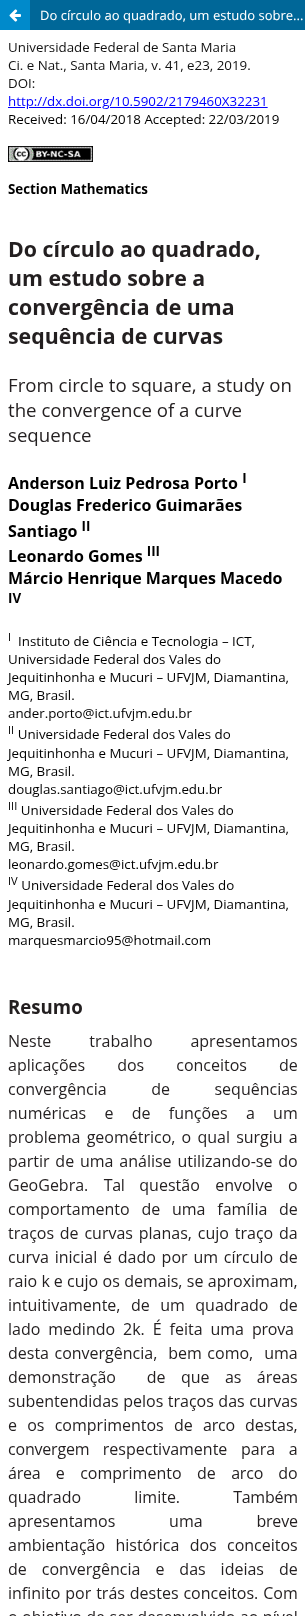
<svg xmlns="http://www.w3.org/2000/svg" width="305" height="1616" viewBox="0 0 305 1616">
  <rect width="100%" height="100%" fill="#fff"/>
  <path d="M30 0h275v30H30z" fill="#006798"/>
  <path d="M0 0h30v30H0z" fill="#008acb"/>
  <image x="9" y="9" width="12" height="13" href="img/1.png"/>
  <image x="6" y="42" width="292" height="1574" href="img/2.png"/>
  <text x="40" y="20" font-family="Noto Sans" font-size="13" fill="#fff">Do círculo ao quadrado, um estudo sobre…</text>
</svg>
